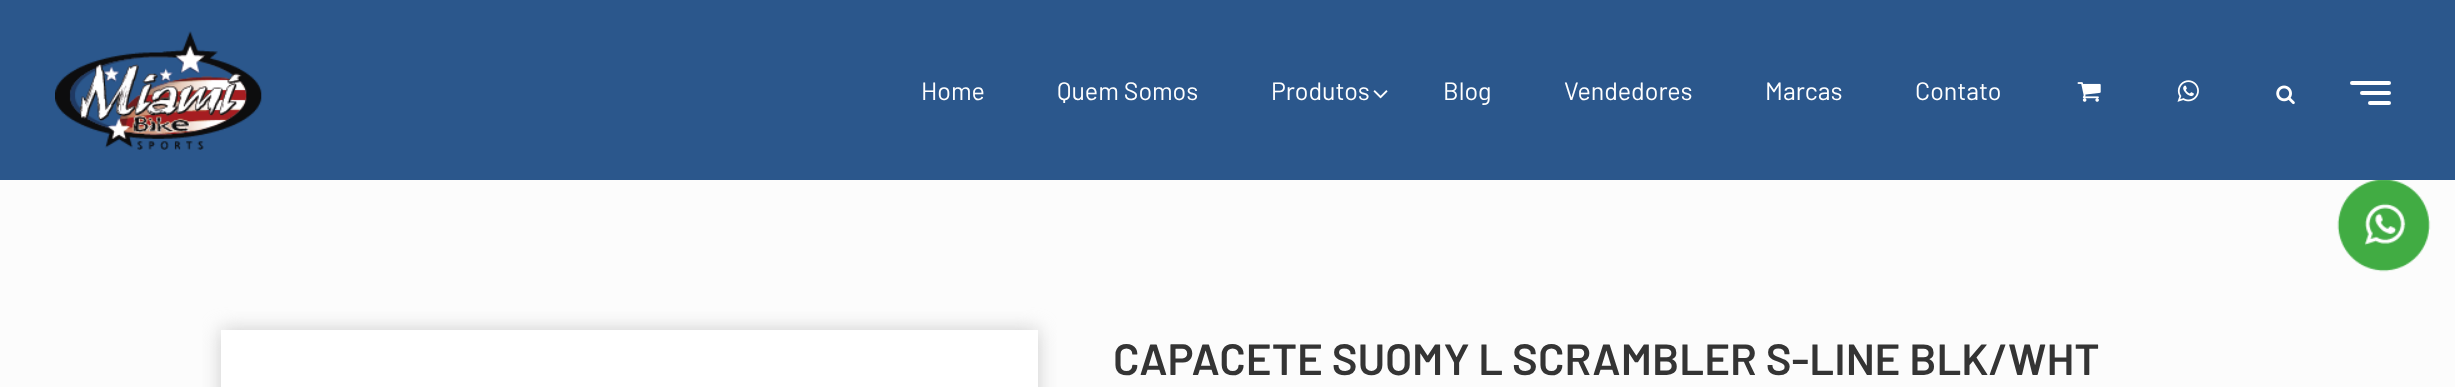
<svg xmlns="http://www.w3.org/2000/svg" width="2455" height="387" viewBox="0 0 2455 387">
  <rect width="100%" height="100%" fill="#fcfcfc"/>
  <path d="M0 0h2455v180H0z" fill="#2b578c"/>
  <image x="55" y="31" width="207" height="119" href="img/1.png"/>
  <image x="1373" y="90" width="15" height="9" href="img/2.png"/>
  <image x="2077" y="82" width="24" height="20" href="img/3.png"/>
  <image x="2177" y="80" width="22" height="22" href="img/4.png"/>
  <image x="2276" y="85" width="19" height="20" href="img/5.png"/>
  <rect x="2350" y="81" width="41" height="4" rx="2" fill="#fff"/>
  <rect x="2360" y="91" width="31" height="4" rx="2" fill="#fff"/>
  <rect x="2368" y="101" width="23" height="4" rx="2" fill="#fff"/>
  <image x="2337" y="180" width="94" height="92" href="img/6.png"/>
  <path d="M221 330h817v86H221z" fill="#ccc" filter="blur(9.5px)"/>
  <path d="M221 330h817v57H221z" fill="#fff"/>
  <g font-family="Barlow" font-size="25" fill="#fff">
    <text x="921" y="100">Home</text>
    <text x="1057" y="100">Quem Somos</text>
    <text x="1271" y="100">Produtos</text>
    <text x="1443" y="100">Blog</text>
    <text x="1564" y="100">Vendedores</text>
    <text x="1765" y="100">Marcas</text>
    <text x="1915" y="100">Contato</text>
  </g>
  <text x="1113" y="375" font-family="Barlow" font-size="43.75" font-weight="600" fill="#343434">CAPACETE SUOMY L SCRAMBLER S-LINE BLK/WHT</text>
</svg>
